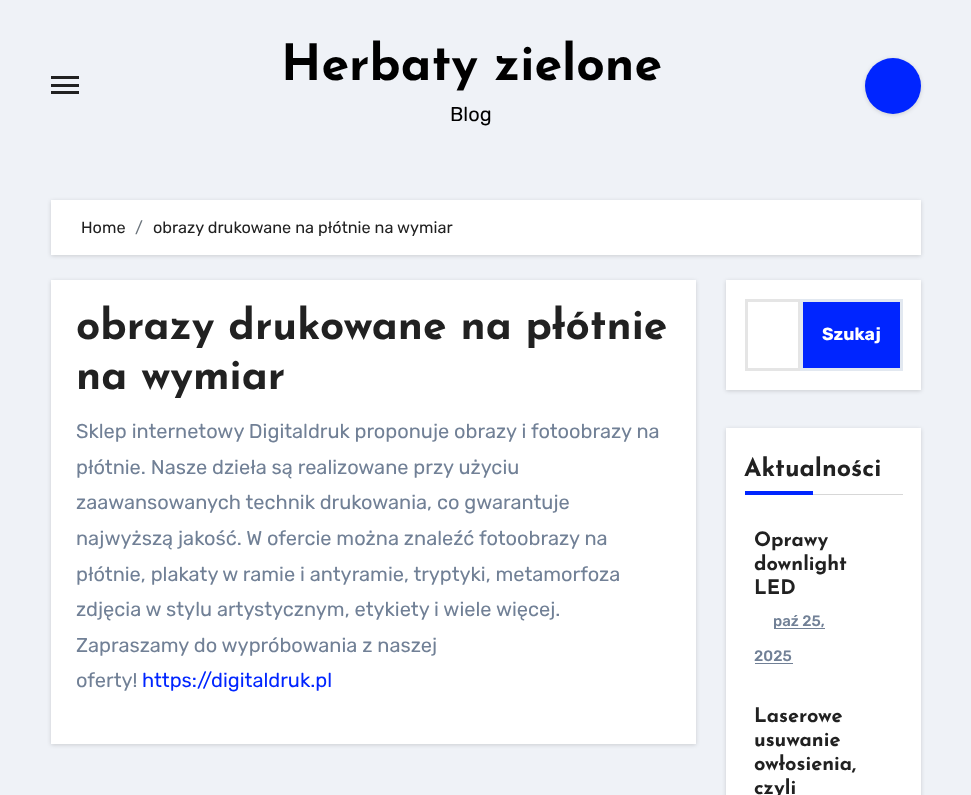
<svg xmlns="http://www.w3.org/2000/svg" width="971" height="795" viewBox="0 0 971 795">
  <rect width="100%" height="100%" fill="#eff2f7"/>
  <path d="M51 76h28v3H51z" fill="#212121"/>
  <path d="M51 84h28v3H51z" fill="#212121"/>
  <path d="M51 91h28v3H51z" fill="#212121"/>
  <rect x="865" y="59" width="56" height="56" rx="28" fill="#00000026" filter="blur(2px)"/>
  <circle cx="893" cy="86" r="28" fill="#0025ff"/>
  <path d="M51 201h870v55H51z" fill="#00000026" filter="blur(2px)"/>
  <path d="M51 200h870v55H51z" fill="#fff"/>
  <path d="M51 281h645v464H51z" fill="#00000026" filter="blur(2px)"/>
  <path d="M51 280h645v464H51z" fill="#fff"/>
  <path d="M726 281h195v110H726z" fill="#00000026" filter="blur(2px)"/>
  <path d="M726 280h195v110H726z" fill="#fff"/>
  <path d="M746.5 300.5h53v69H746.5z" fill="none" stroke="#e5e5e5" stroke-width="3"/>
  <path d="M801.5 300.5h100v69H801.5z" fill="#0025ff" stroke="#e2e8f0" stroke-width="3"/>
  <path d="M726 429h195v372H726z" fill="#00000026" filter="blur(2px)"/>
  <path d="M726 428h195v367H726z" fill="#fff"/>
  <path d="M813 494h90v1H813z" fill="#d7d7d7"/>
  <path d="M745 491h68v4H745z" fill="#0025ff"/>
  <path d="M774 628h51v1H774z" fill="#718096"/>
  <path d="M755 663h38v1H755z" fill="#718096"/>
  <text x="281" y="80" font-family="Josefin Sans" font-size="50" font-weight="bold" fill="#000">Herbaty zielone</text>
  <text x="450" y="121" font-family="Rubik" font-size="20" font-weight="300" fill="#000">Blog</text>
  <text x="81" y="233" font-family="Rubik" font-size="16.25" font-weight="300" fill="#212121">Home</text>
  <text x="135" y="233" font-family="Rubik" font-size="16.25" font-weight="300" fill="#6c757d">/</text>
  <text x="153" y="233" font-family="Rubik" font-size="16.25" font-weight="300" fill="#212121">obrazy drukowane na płótnie na wymiar</text>
  <g font-family="Josefin Sans" font-size="42.5" font-weight="bold" fill="#212121">
    <text x="76" y="339">obrazy drukowane na płótnie</text>
    <text x="76" y="389">na wymiar</text>
  </g>
  <g font-family="Rubik" font-size="20" font-weight="300" fill="#718096">
    <text x="76" y="438">Sklep internetowy Digitaldruk proponuje obrazy i fotoobrazy na</text>
    <text x="76" y="474">płótnie. Nasze dzieła są realizowane przy użyciu</text>
    <text x="76" y="509">zaawansowanych technik drukowania, co gwarantuje</text>
    <text x="76" y="545">najwyższą jakość. W ofercie można znaleźć fotoobrazy na</text>
    <text x="76" y="581">płótnie, plakaty w ramie i antyramie, tryptyki, metamorfoza</text>
    <text x="76" y="616">zdjęcia w stylu artystycznym, etykiety i wiele więcej.</text>
    <text x="76" y="652">Zapraszamy do wypróbowania z naszej</text>
    <text x="76" y="687">oferty!</text>
  </g>
  <text x="142" y="687" font-family="Rubik" font-size="20" font-weight="300" fill="#0025ff">https://digitaldruk.pl</text>
  <text x="822" y="340" font-family="Rubik" font-size="17.5" font-weight="bold" fill="#fff">Szukaj</text>
  <text x="744" y="476" font-family="Josefin Sans" font-size="25" font-weight="bold" fill="#212121">Aktualności</text>
  <g font-family="Josefin Sans" font-size="20" font-weight="bold" fill="#212121">
    <text x="754" y="546">Oprawy</text>
    <text x="754" y="570">downlight</text>
    <text x="754" y="594">LED</text>
  </g>
  <g font-family="Rubik" font-size="15" font-weight="500" fill="#718096">
    <text x="773" y="626">paź 25,</text>
    <text x="754" y="661">2025</text>
  </g>
  <g font-family="Josefin Sans" font-size="20" font-weight="bold" fill="#212121">
    <text x="754" y="722">Laserowe</text>
    <text x="754" y="746">usuwanie</text>
    <text x="754" y="770">owłosienia,</text>
    <text x="754" y="794">czyli</text>
  </g>
</svg>
